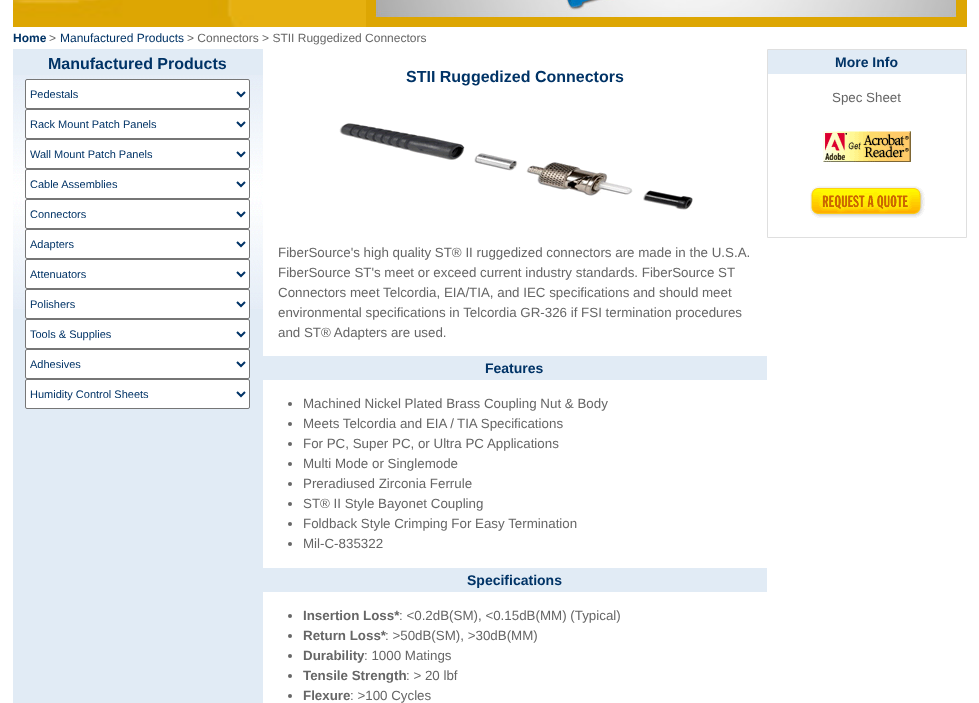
<svg xmlns="http://www.w3.org/2000/svg" width="979" height="703" viewBox="0 0 979 703">
  <rect width="100%" height="100%" fill="#fff"/>
  <image x="13" y="0" width="954" height="27" href="img/1.png"/>
  <image x="366" y="0" width="592" height="27" href="img/2.png"/>
  <path d="M13 49h250v654H13z" fill="#e1ebf5"/>
  <image x="13" y="75" width="250" height="234" href="img/3.png"/>
  <rect x="25.5" y="79.5" width="224" height="29" rx="1.5" fill="#fff" stroke="#767676"/>
  <path d="M237 92L241 96L245 92" fill="none" stroke="#036" stroke-width="2"/>
  <rect x="25.5" y="109.5" width="224" height="29" rx="1.5" fill="#fff" stroke="#767676"/>
  <path d="M237 122L241 126L245 122" fill="none" stroke="#036" stroke-width="2"/>
  <rect x="25.5" y="139.5" width="224" height="29" rx="1.5" fill="#fff" stroke="#767676"/>
  <path d="M237 152L241 156L245 152" fill="none" stroke="#036" stroke-width="2"/>
  <rect x="25.5" y="169.5" width="224" height="29" rx="1.5" fill="#fff" stroke="#767676"/>
  <path d="M237 182L241 186L245 182" fill="none" stroke="#036" stroke-width="2"/>
  <rect x="25.5" y="199.5" width="224" height="29" rx="1.5" fill="#fff" stroke="#767676"/>
  <path d="M237 212L241 216L245 212" fill="none" stroke="#036" stroke-width="2"/>
  <rect x="25.5" y="229.5" width="224" height="29" rx="1.5" fill="#fff" stroke="#767676"/>
  <path d="M237 242L241 246L245 242" fill="none" stroke="#036" stroke-width="2"/>
  <rect x="25.5" y="259.5" width="224" height="29" rx="1.5" fill="#fff" stroke="#767676"/>
  <path d="M237 272L241 276L245 272" fill="none" stroke="#036" stroke-width="2"/>
  <rect x="25.5" y="289.5" width="224" height="29" rx="1.5" fill="#fff" stroke="#767676"/>
  <path d="M237 302L241 306L245 302" fill="none" stroke="#036" stroke-width="2"/>
  <rect x="25.5" y="319.5" width="224" height="29" rx="1.5" fill="#fff" stroke="#767676"/>
  <path d="M237 332L241 336L245 332" fill="none" stroke="#036" stroke-width="2"/>
  <rect x="25.5" y="349.5" width="224" height="29" rx="1.5" fill="#fff" stroke="#767676"/>
  <path d="M237 362L241 366L245 362" fill="none" stroke="#036" stroke-width="2"/>
  <rect x="25.5" y="379.5" width="224" height="29" rx="1.5" fill="#fff" stroke="#767676"/>
  <path d="M237 392L241 396L245 392" fill="none" stroke="#036" stroke-width="2"/>
  <image x="339" y="123" width="354" height="87" href="img/4.png"/>
  <path d="M263 356h504v24H263z" fill="#e1ebf5"/>
  <circle cx="290" cy="404" r="2" fill="#666"/>
  <circle cx="290" cy="424" r="2" fill="#666"/>
  <circle cx="290" cy="444" r="2" fill="#666"/>
  <circle cx="290" cy="464" r="2" fill="#666"/>
  <circle cx="290" cy="484" r="2" fill="#666"/>
  <circle cx="290" cy="504" r="2" fill="#666"/>
  <circle cx="290" cy="524" r="2" fill="#666"/>
  <circle cx="290" cy="544" r="2" fill="#666"/>
  <path d="M263 568h504v24H263z" fill="#e1ebf5"/>
  <circle cx="290" cy="616" r="2" fill="#666"/>
  <circle cx="290" cy="636" r="2" fill="#666"/>
  <circle cx="290" cy="656" r="2" fill="#666"/>
  <circle cx="290" cy="676" r="2" fill="#666"/>
  <circle cx="290" cy="696" r="2" fill="#666"/>
  <path d="M767.5 49.5h199v188H767.5z" fill="none" stroke="#dfdfdf"/>
  <path d="M768 50h198v24H768z" fill="#e1ebf5"/>
  <image x="823" y="131" width="88" height="31" href="img/5.png"/>
  <image x="810" y="186" width="115" height="32" href="img/6.png"/>
  <text x="13" y="42" font-family="Liberation Sans" font-size="12" font-weight="bold" fill="#036">Home</text>
  <text x="49" y="42" font-family="Liberation Sans" font-size="12" fill="#666">&gt;</text>
  <text x="60" y="42" font-family="Liberation Sans" font-size="12" fill="#036">Manufactured Products</text>
  <text x="187" y="42" font-family="Liberation Sans" font-size="12" fill="#666">&gt; Connectors &gt; STII Ruggedized Connectors</text>
  <text x="48" y="69" font-family="Liberation Sans" font-size="16" font-weight="bold" fill="#036">Manufactured Products</text>
  <g font-family="Liberation Sans" font-size="11" fill="#036">
    <text x="30" y="98">Pedestals</text>
    <text x="30" y="128">Rack Mount Patch Panels</text>
    <text x="30" y="158">Wall Mount Patch Panels</text>
    <text x="30" y="188">Cable Assemblies</text>
    <text x="30" y="218">Connectors</text>
    <text x="30" y="248">Adapters</text>
    <text x="30" y="278">Attenuators</text>
    <text x="30" y="308">Polishers</text>
    <text x="30" y="338">Tools &amp; Supplies</text>
    <text x="30" y="368">Adhesives</text>
    <text x="30" y="398">Humidity Control Sheets</text>
  </g>
  <text x="406" y="82" font-family="Liberation Sans" font-size="16" font-weight="bold" fill="#036">STII Ruggedized Connectors</text>
  <g font-family="Liberation Sans" font-size="13.35" fill="#666">
    <text x="278" y="257">FiberSource's high quality ST® II ruggedized connectors are made in the U.S.A.</text>
    <text x="278" y="277">FiberSource ST's meet or exceed current industry standards. FiberSource ST</text>
    <text x="278" y="297">Connectors meet Telcordia, EIA/TIA, and IEC specifications and should meet</text>
    <text x="278" y="317">environmental specifications in Telcordia GR-326 if FSI termination procedures</text>
    <text x="278" y="337">and ST® Adapters are used.</text>
  </g>
  <text x="485" y="373" font-family="Liberation Sans" font-size="14" font-weight="bold" fill="#036">Features</text>
  <g font-family="Liberation Sans" font-size="13.35" fill="#666">
    <text x="303" y="408">Machined Nickel Plated Brass Coupling Nut &amp; Body</text>
    <text x="303" y="428">Meets Telcordia and EIA /</text>
    <text x="457" y="428">TIA Specifications</text>
    <text x="303" y="448">For PC, Super PC, or Ultra PC Applications</text>
    <text x="303" y="468">Multi Mode or Singlemode</text>
    <text x="303" y="488">Preradiused Zirconia Ferrule</text>
    <text x="303" y="508">ST® II Style Bayonet Coupling</text>
    <text x="303" y="528">Foldback Style Crimping For Easy Termination</text>
    <text x="303" y="548">Mil-C-835322</text>
  </g>
  <text x="467" y="585" font-family="Liberation Sans" font-size="14" font-weight="bold" fill="#036">Specifications</text>
  <text x="303" y="620" font-family="Liberation Sans" font-size="13.35" font-weight="bold" fill="#666">Insertion Loss*</text>
  <text x="399" y="620" font-family="Liberation Sans" font-size="13.35" fill="#666">: &lt;0.2dB(SM), &lt;0.15dB(MM) (Typical)</text>
  <text x="303" y="640" font-family="Liberation Sans" font-size="13.35" font-weight="bold" fill="#666">Return Loss*</text>
  <text x="385" y="640" font-family="Liberation Sans" font-size="13.35" fill="#666">: &gt;50dB(SM), &gt;30dB(MM)</text>
  <text x="303" y="660" font-family="Liberation Sans" font-size="13.35" font-weight="bold" fill="#666">Durability</text>
  <text x="364" y="660" font-family="Liberation Sans" font-size="13.35" fill="#666">: 1000 Matings</text>
  <text x="303" y="680" font-family="Liberation Sans" font-size="13.35" font-weight="bold" fill="#666">Tensile Strength</text>
  <text x="406" y="680" font-family="Liberation Sans" font-size="13.35" fill="#666">: &gt; 20 lbf</text>
  <text x="303" y="700" font-family="Liberation Sans" font-size="13.35" font-weight="bold" fill="#666">Flexure</text>
  <text x="350" y="700" font-family="Liberation Sans" font-size="13.35" fill="#666">: &gt;100 Cycles</text>
  <text x="835" y="67" font-family="Liberation Sans" font-size="14" font-weight="bold" fill="#036">More Info</text>
  <text x="832" y="102" font-family="Liberation Sans" font-size="13.35" fill="#666">Spec Sheet</text>
</svg>
